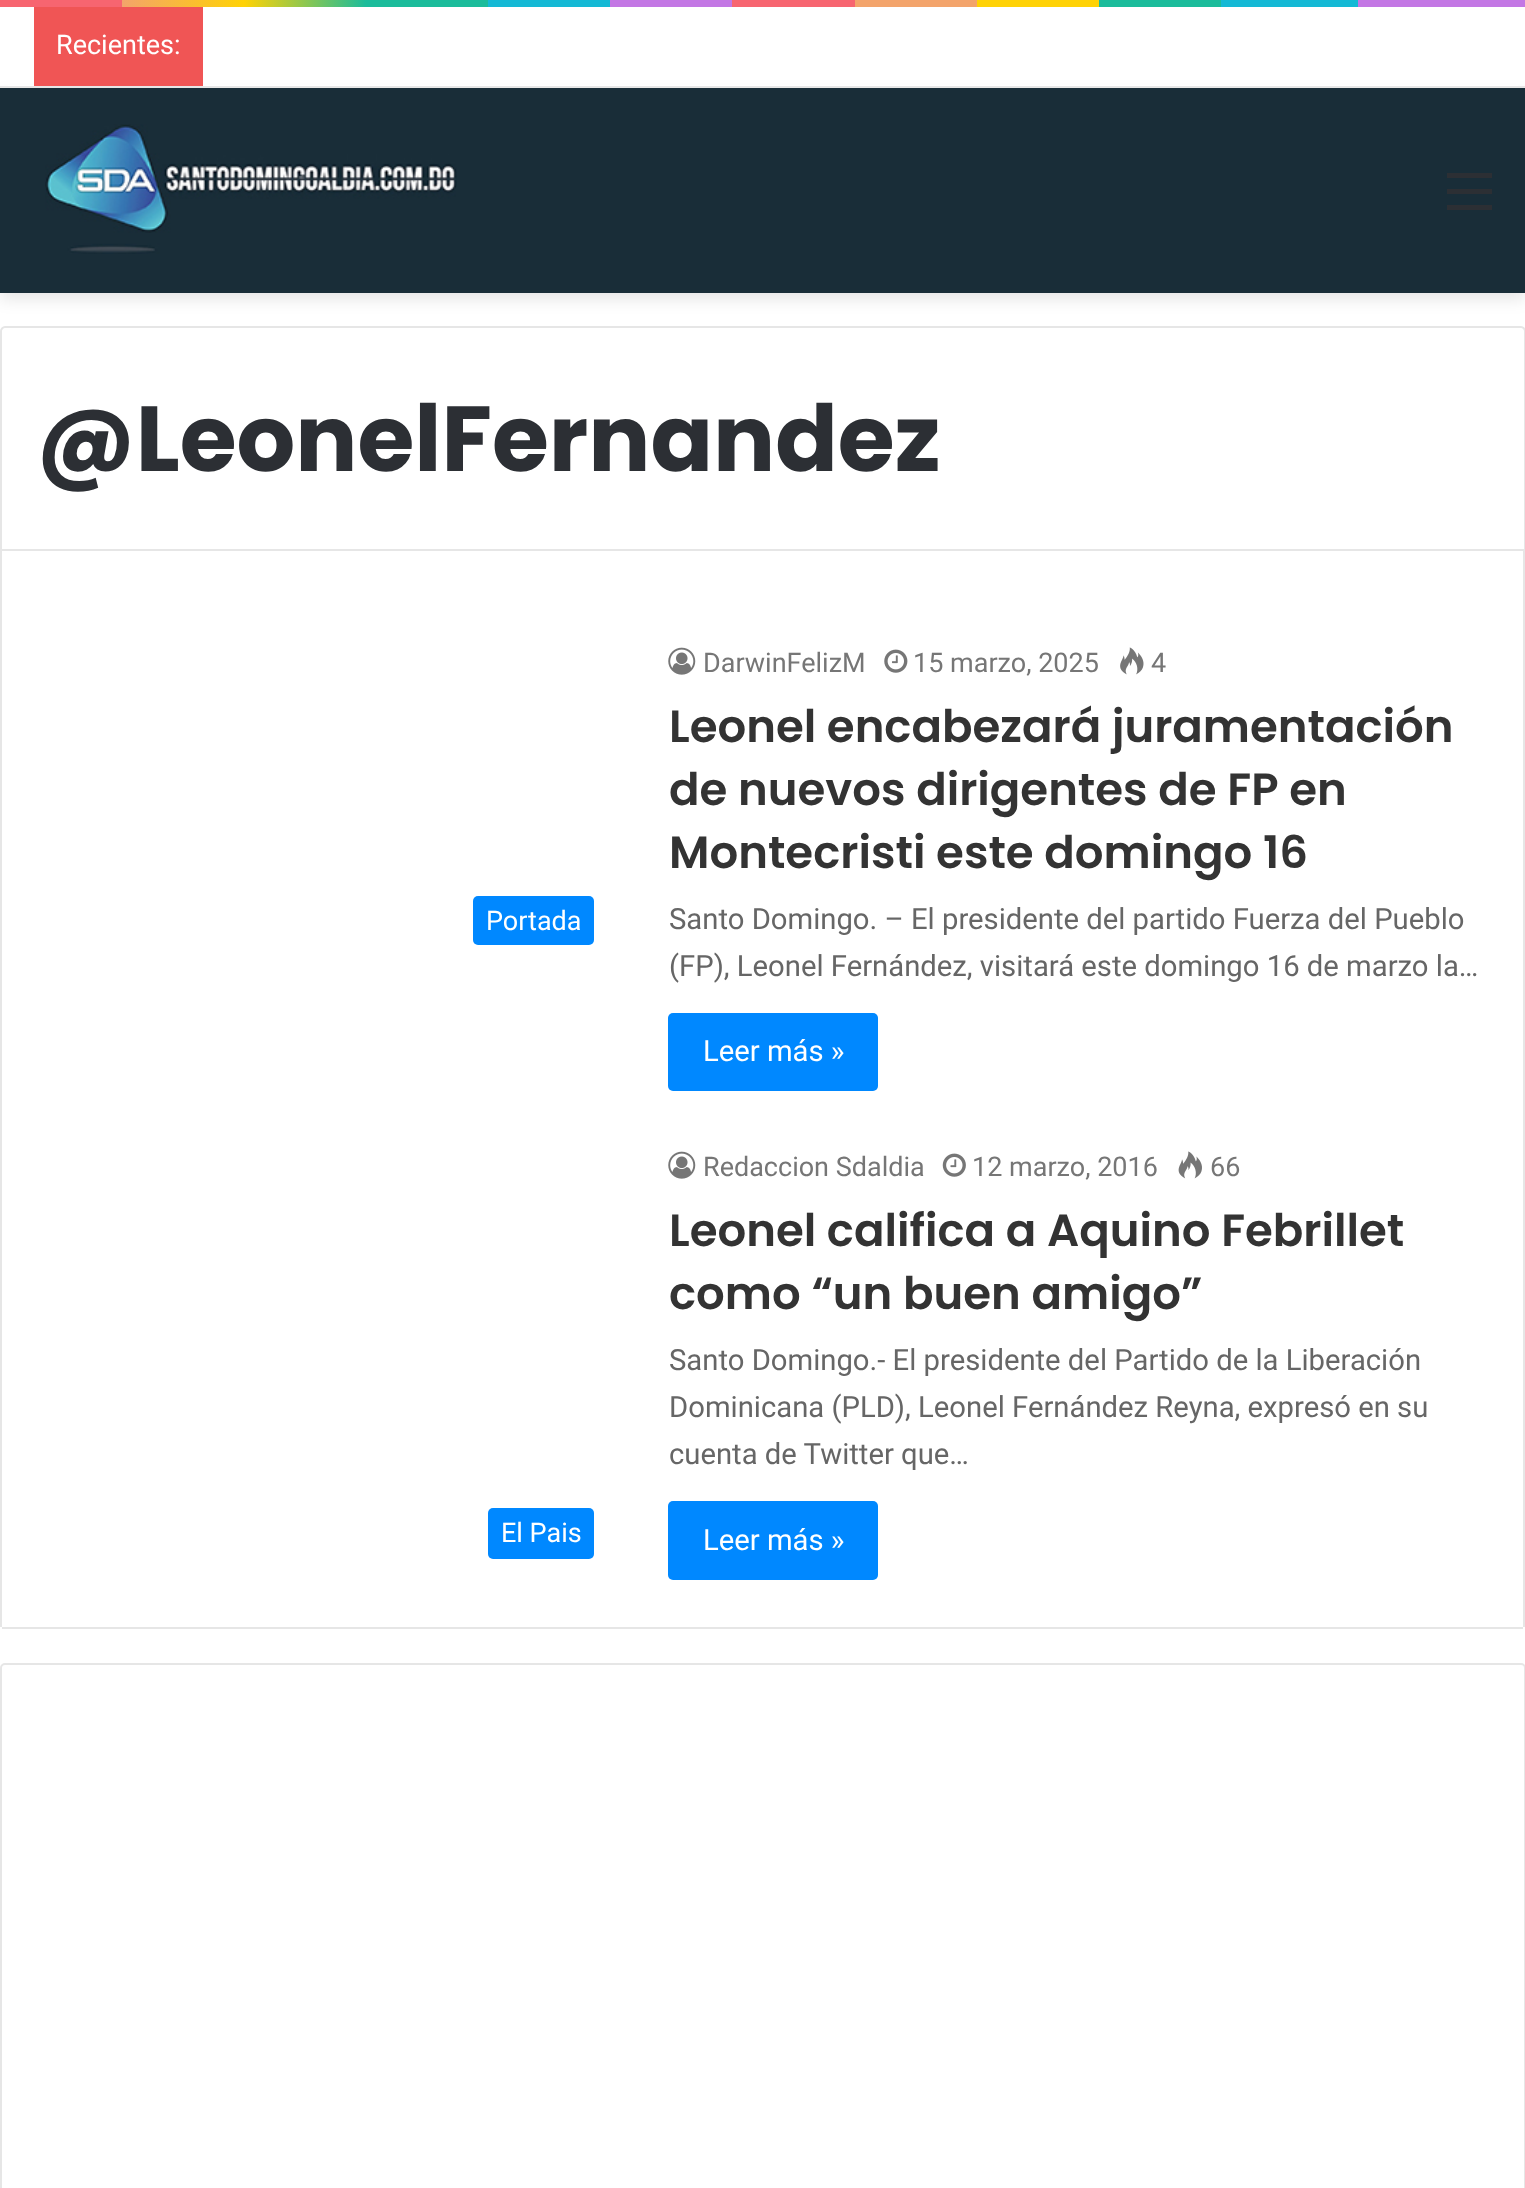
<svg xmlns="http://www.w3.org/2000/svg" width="1525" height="2188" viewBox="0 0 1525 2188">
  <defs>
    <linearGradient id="g1" gradientUnits="userSpaceOnUse" x1="0" y1="3.4" x2="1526" y2="3.4"><stop offset="0" stop-color="#f76570"/><stop offset="0.08" stop-color="#f76570"/><stop offset="0.08" stop-color="#f3a46b"/><stop offset="0.16" stop-color="#ffd205"/><stop offset="0.24" stop-color="#1bbc9b"/><stop offset="0.32" stop-color="#1bbc9b"/><stop offset="0.32" stop-color="#14b9d5"/><stop offset="0.4" stop-color="#14b9d5"/><stop offset="0.4" stop-color="#c377e4"/><stop offset="0.48" stop-color="#c377e4"/><stop offset="0.48" stop-color="#f76570"/><stop offset="0.56" stop-color="#f76570"/><stop offset="0.56" stop-color="#f3a46b"/><stop offset="0.64" stop-color="#f3a46b"/><stop offset="0.64" stop-color="#ffd205"/><stop offset="0.72" stop-color="#ffd205"/><stop offset="0.72" stop-color="#1bbc9b"/><stop offset="0.8" stop-color="#1bbc9b"/><stop offset="0.8" stop-color="#14b9d5"/><stop offset="0.89" stop-color="#14b9d5"/><stop offset="0.89" stop-color="#c377e4"/><stop offset="1" stop-color="#c377e4"/></linearGradient>
  </defs>
  <rect width="100%" height="100%" fill="#fff"/>
  <path d="M0 0h1525v7H0z" fill="url(#g1)"/>
  <path d="M0 95h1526v204H0z" fill="#0000001a" filter="blur(8px)"/>
  <path d="M8 85h1510v1H8z" fill="#fff"/>
  <path d="M0 86h1525v2H0z" fill="#e6e6e6"/>
  <path d="M34 7h169v79H34z" fill="#f05555"/>
  <path d="M0 88h1525v205H0z" fill="#192d38"/>
  <image x="45" y="124" width="412" height="130" href="img/1.png"/>
  <path d="M1447 189h45v5H1447z" fill="#2c2f34"/>
  <path d="M1447 173h45v5H1447z" fill="#2c2f34"/>
  <path d="M1447 205h45v5H1447z" fill="#2c2f34"/>
  <path d="M5 327H1521C1523 327 1525 329 1525 331V550H1V331C1 329 3 327 5 327Z" fill="none" stroke="#e6e6e6" stroke-width="2"/>
  <path d="M1523 551h2v1076H1523z" fill="#e6e6e6"/>
  <path d="M2 1627h1521v2H2z" fill="#e6e6e6"/>
  <path d="M0 551h2v1076H0z" fill="#e6e6e6"/>
  <rect x="473" y="896" width="121" height="49" rx="5" fill="#08f"/>
  <image x="668" y="647" width="28" height="28" href="img/2.png"/>
  <image x="884" y="649" width="24" height="24" href="img/3.png"/>
  <image x="1120" y="647" width="24" height="28" href="img/4.png"/>
  <rect x="668" y="1013" width="210" height="78" rx="5" fill="#08f"/>
  <rect x="488" y="1508" width="106" height="51" rx="5" fill="#08f"/>
  <image x="668" y="1151" width="28" height="28" href="img/2.png"/>
  <image x="942" y="1153" width="24" height="24" href="img/5.png"/>
  <image x="1178" y="1151" width="24" height="28" href="img/6.png"/>
  <rect x="668" y="1501" width="210" height="79" rx="5" fill="#08f"/>
  <rect x="1" y="1664" width="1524" height="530" rx="4" fill="none" stroke="#e6e6e6" stroke-width="2"/>
  <text x="56" y="54" font-family="Roboto" font-size="27" fill="#fff">Recientes:</text>
  <text x="36" y="471" font-family="Poppins" font-size="92.25" font-weight="bold" fill="#2c2f34">@LeonelFernandez</text>
  <text x="486" y="930" font-family="Roboto" font-size="27" fill="#fff">Portada</text>
  <g font-family="Roboto" font-size="27" fill="#767676">
    <text x="703" y="672">DarwinFelizM</text>
    <text x="913" y="672">15 marzo, 2025</text>
    <text x="1151" y="672">4</text>
  </g>
  <g font-family="Poppins" font-size="45" font-weight="600" fill="#333">
    <text x="669" y="742">Leonel encabezará juramentación</text>
    <text x="669" y="805">de nuevos dirigentes de FP en</text>
    <text x="669" y="868">Montecristi este domingo 16</text>
  </g>
  <g font-family="Roboto" font-size="29.25" fill="#666">
    <text x="669" y="929">Santo Domingo. – El presidente del partido Fuerza del Pueblo</text>
    <text x="669" y="976">(FP), Leonel Fernández, visitará este domingo 16 de marzo la…</text>
  </g>
  <text x="703" y="1061" font-family="Roboto" font-size="29.25" fill="#fff">Leer más »</text>
  <text x="501" y="1542" font-family="Roboto" font-size="27" fill="#fff">El Pais</text>
  <g font-family="Roboto" font-size="27" fill="#767676">
    <text x="703" y="1176">Redaccion Sdaldia</text>
    <text x="972" y="1176">12 marzo, 2016</text>
    <text x="1210" y="1176">66</text>
  </g>
  <g font-family="Poppins" font-size="45" font-weight="600" fill="#333">
    <text x="669" y="1246">Leonel califica a Aquino Febrillet</text>
    <text x="669" y="1309">como “un buen amigo”</text>
  </g>
  <g font-family="Roboto" font-size="29.25" fill="#666">
    <text x="669" y="1370">Santo Domingo.- El presidente del Partido de la Liberación</text>
    <text x="669" y="1417">Dominicana (PLD), Leonel Fernández Reyna, expresó en su</text>
    <text x="669" y="1464">cuenta de Twitter que…</text>
  </g>
  <text x="703" y="1550" font-family="Roboto" font-size="29.25" fill="#fff">Leer más »</text>
</svg>
